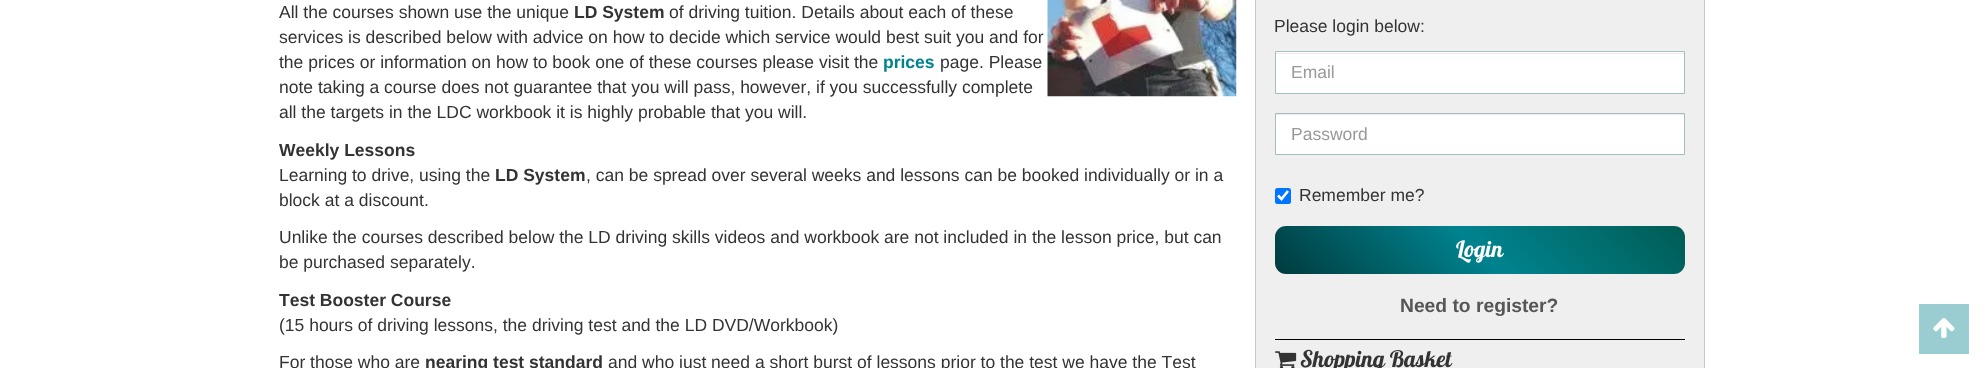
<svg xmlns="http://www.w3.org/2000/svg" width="1983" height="368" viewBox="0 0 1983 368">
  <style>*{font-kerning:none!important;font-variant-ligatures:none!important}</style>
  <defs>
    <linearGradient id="g1" gradientUnits="userSpaceOnUse" x1="1366" y1="364" x2="1594" y2="136"><stop offset="0" stop-color="#003b3d"/><stop offset="0.5" stop-color="#00838f"/><stop offset="1" stop-color="#005c54"/></linearGradient>
  </defs>
  <rect width="100%" height="100%" fill="#fff"/>
  <image x="1047" y="0" width="190" height="97" href="img/1.png"/>
  <path d="M1255.5 -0.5h449v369H1255.5z" fill="#efefef" stroke="#c9c9c9"/>
  <path d="M1276 52h408v41H1276z" fill="#fff"/>
  <path d="M1276 53h408v1H1276z" fill="#ececec"/>
  <path d="M1275.5 51.5h409v42H1275.5z" fill="none" stroke="#a3bdc0"/>
  <path d="M1276 115h408v39H1276z" fill="#fff"/>
  <path d="M1276 114h408v1H1276z" fill="#ececec"/>
  <path d="M1275.5 113.5h409v41H1275.5z" fill="none" stroke="#a3bdc0"/>
  <rect x="1275" y="188" width="16" height="16" rx="2.5" fill="#0075ff"/>
  <path d="M1278 195.5L1281.5 199L1288 191" fill="none" stroke="#fff" stroke-width="2.6"/>
  <rect x="1275" y="226" width="410" height="48" rx="11" fill="url(#g1)"/>
  <path d="M1275 339h410v1H1275z" fill="#000"/>
  <image x="1275" y="351" width="22" height="17" href="img/2.png"/>
  <path d="M1919 304h50v50H1919z" fill="#99cdd2"/>
  <image x="1933" y="317" width="22" height="21" href="img/3.png"/>
  <text x="279" y="18" font-family="Liberation Sans" font-size="17.5" fill="#333">All the courses shown use the unique</text>
  <text x="574" y="18" font-family="Liberation Sans" font-size="17.5" font-weight="bold" fill="#333">LD System</text>
  <g font-family="Liberation Sans" font-size="17.5" fill="#333">
    <text x="669" y="18">of driving tuition. Details about each of these</text>
    <text x="279" y="43">services is described below with advice on how to decide which service would best suit you and for</text>
    <text x="279" y="68">the prices or information on how to book one of these courses please visit the</text>
  </g>
  <text x="883" y="68" font-family="Liberation Sans" font-size="17.5" font-weight="bold" fill="#00838f">prices</text>
  <g font-family="Liberation Sans" font-size="17.5" fill="#333">
    <text x="940" y="68">page. Please</text>
    <text x="279" y="93">note taking a course does not guarantee that you will pass, however, if you successfully complete</text>
    <text x="279" y="118">all the targets in the LDC workbook it is highly probable that you will.</text>
  </g>
  <text x="279" y="156" font-family="Liberation Sans" font-size="17.5" font-weight="bold" fill="#333">Weekly Lessons</text>
  <text x="279" y="181" font-family="Liberation Sans" font-size="17.5" fill="#333">Learning to drive, using the</text>
  <text x="495" y="181" font-family="Liberation Sans" font-size="17.5" font-weight="bold" fill="#333">LD System</text>
  <g font-family="Liberation Sans" font-size="17.5" fill="#333">
    <text x="586" y="181">, can be spread over several weeks and lessons can be booked individually or in a</text>
    <text x="279" y="206">block at a discount.</text>
    <text x="279" y="243">Unlike the courses described below the LD driving skills videos and workbook are not included in the lesson price, but can</text>
    <text x="279" y="268">be purchased separately.</text>
  </g>
  <text x="279" y="306" font-family="Liberation Sans" font-size="17.5" font-weight="bold" fill="#333">Test Booster Course</text>
  <g font-family="Liberation Sans" font-size="17.5" fill="#333">
    <text x="279" y="331">(15 hours of driving lessons, the driving test and the LD DVD/Workbook)</text>
    <text x="279" y="368">For those who are</text>
  </g>
  <text x="425" y="368" font-family="Liberation Sans" font-size="17.5" font-weight="bold" fill="#333">nearing test standard</text>
  <g font-family="Liberation Sans" font-size="17.5" fill="#333">
    <text x="608" y="368">and who just need a short burst of lessons prior to the test we have the Test</text>
    <text x="1274" y="32">Please login below:</text>
  </g>
  <g font-family="Liberation Sans" font-size="17.5" fill="#999">
    <text x="1291" y="78">Email</text>
    <text x="1291" y="140">Password</text>
  </g>
  <text x="1299" y="201" font-family="Liberation Sans" font-size="17.5" fill="#333">Remember me?</text>
  <text x="1456" y="257" font-family="Lobster" font-size="22.5" fill="#fff">Login</text>
  <text x="1400" y="312" font-family="Liberation Sans" font-size="19.25" font-weight="bold" fill="#565656">Need to register?</text>
  <text x="1300" y="367" font-family="Lobster" font-size="22.75" fill="#333">Shopping Basket</text>
</svg>
